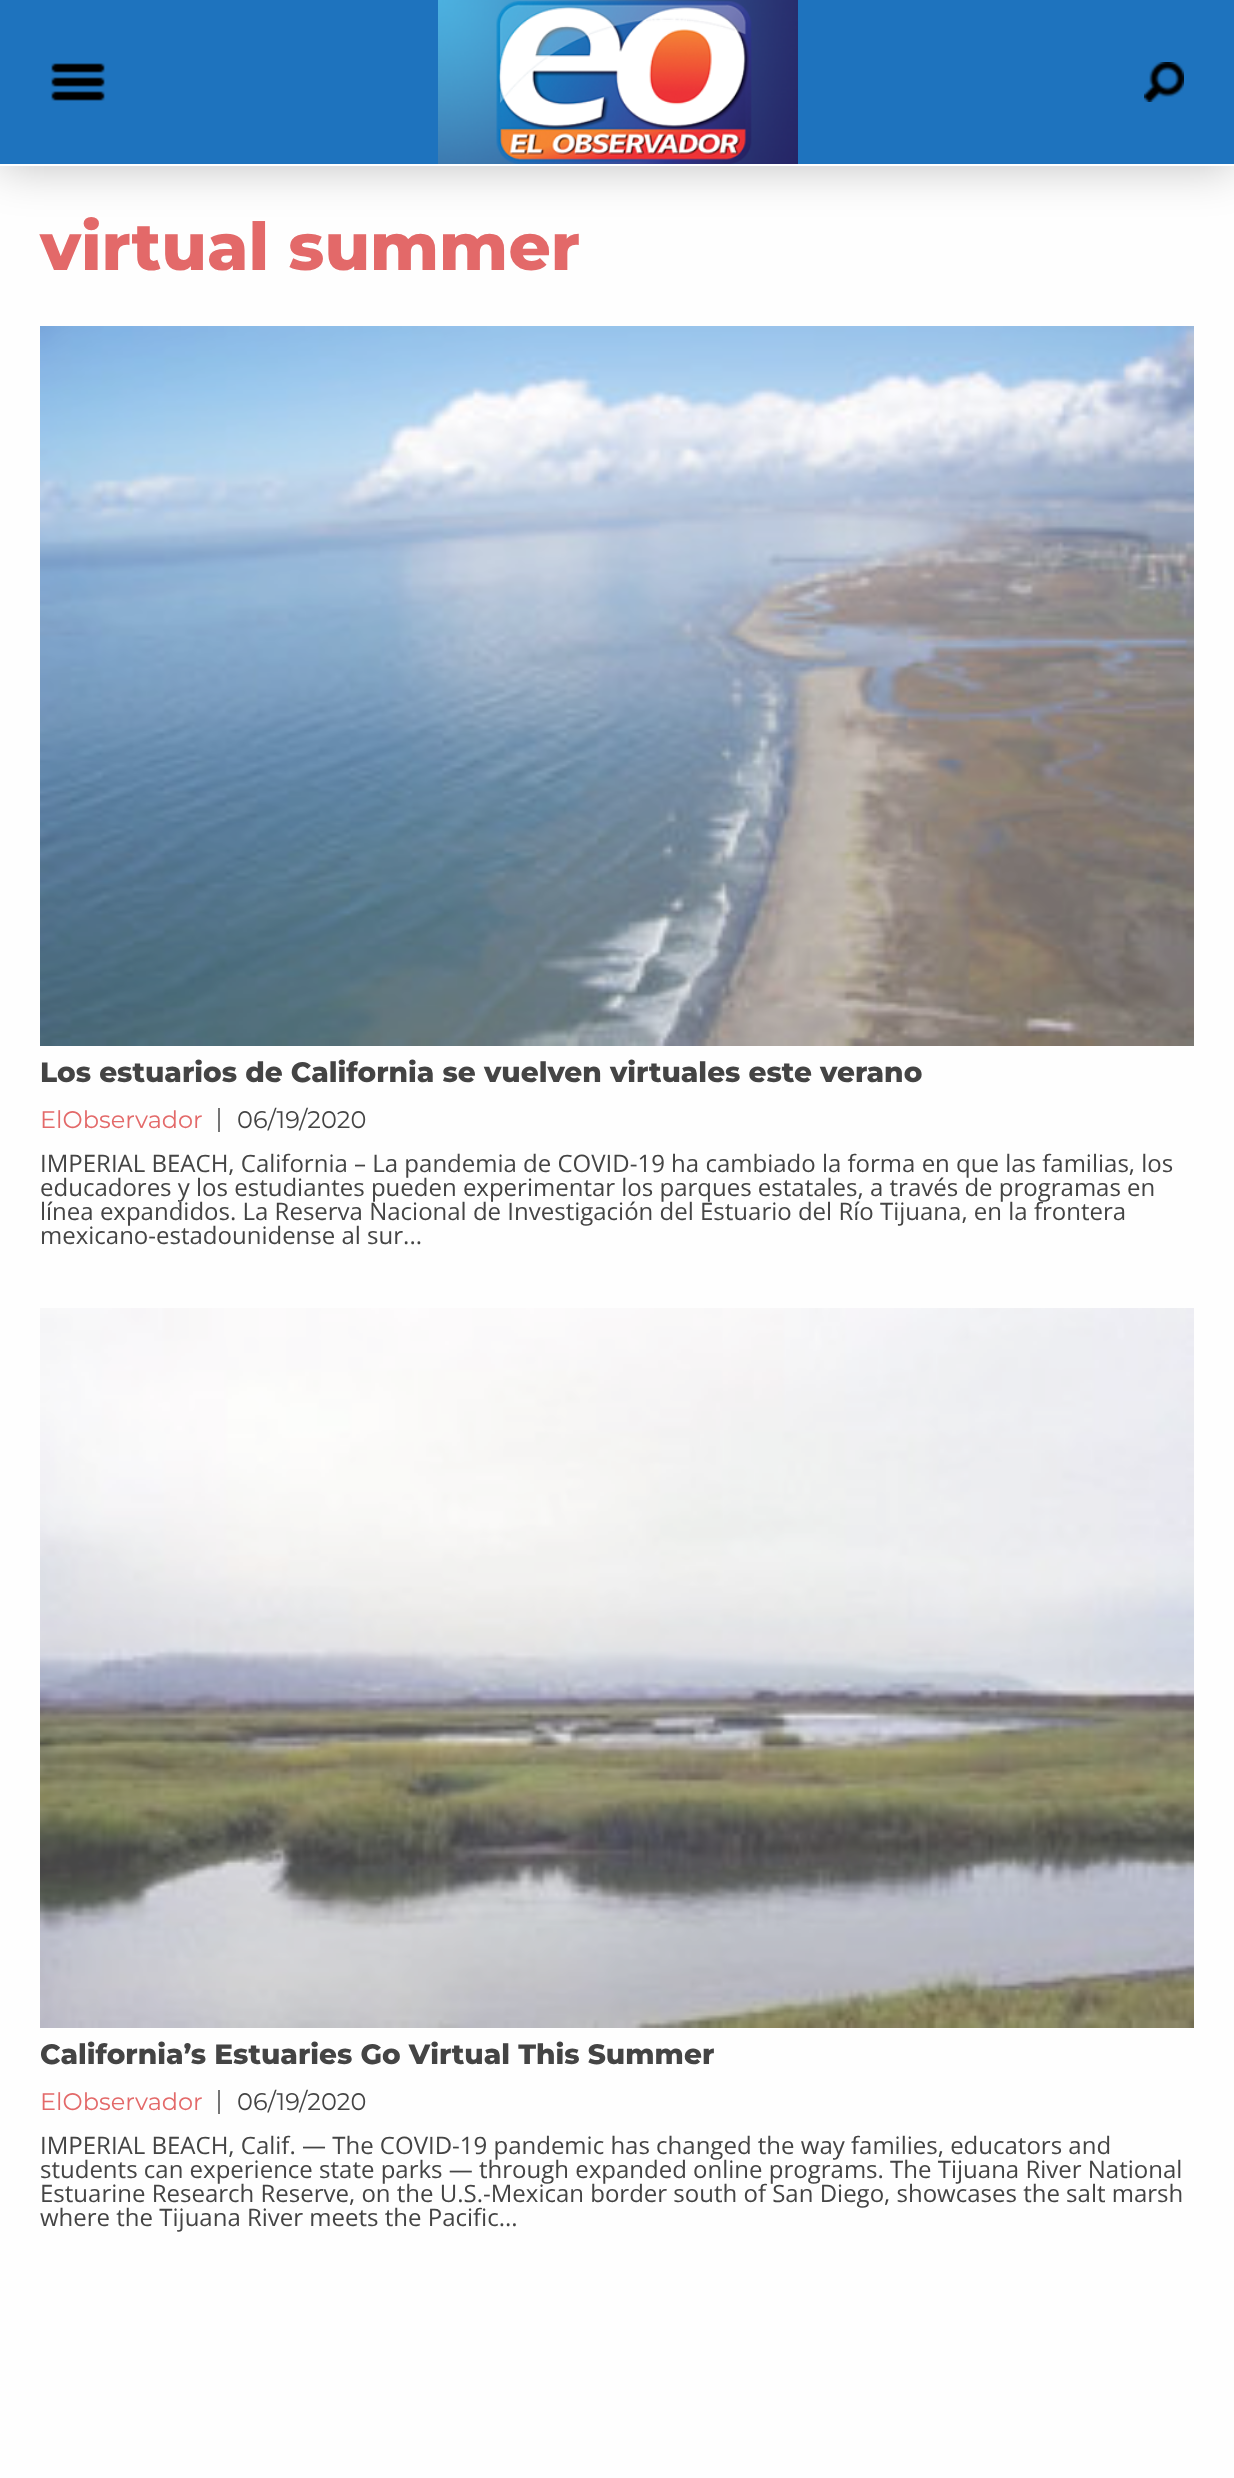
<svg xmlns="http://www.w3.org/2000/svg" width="1234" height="2478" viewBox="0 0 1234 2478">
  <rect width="100%" height="100%" fill="#fefefe"/>
  <path d="M0 0h1234v166H0z" fill="#00000040" filter="blur(24px)"/>
  <path d="M0 164h1234v2H0z" fill="#fff"/>
  <path d="M0 0h1234v164H0z" fill="#1e73be"/>
  <image x="51" y="63" width="54" height="38" href="img/1.png"/>
  <image x="438" y="0" width="360" height="164" href="img/2.png"/>
  <image x="1144" y="62" width="40" height="40" href="img/3.png"/>
  <image x="40" y="326" width="1154" height="720" href="img/4.png"/>
  <path d="M218 1108h2v24H218z" fill="#757575"/>
  <image x="40" y="1308" width="1154" height="720" href="img/5.png"/>
  <path d="M218 2090h2v24H218z" fill="#757575"/>
  <text x="40" y="270" font-family="Montserrat" font-size="66" font-weight="800" fill="#e36969">virtual summer</text>
  <text x="40" y="1082" font-family="Montserrat" font-size="28" font-weight="800" fill="#444">Los estuarios de California se vuelven virtuales este verano</text>
  <text x="40" y="1128" font-family="Montserrat" font-size="24" fill="#e36969">ElObservador</text>
  <text x="237" y="1128" font-family="Montserrat" font-size="24" fill="#444">06/19/2020</text>
  <g font-family="Open Sans" font-size="24" fill="#444">
    <text x="40" y="1172">IMPERIAL BEACH, California – La pandemia de COVID-19 ha cambiado la forma en que las familias, los</text>
    <text x="40" y="1196">educadores y los estudiantes pueden experimentar los parques estatales, a través de programas en</text>
    <text x="40" y="1220">línea expandidos. La Reserva Nacional de Investigación del Estuario del Río Tijuana, en la frontera</text>
    <text x="40" y="1244">mexicano-estadounidense al sur...</text>
  </g>
  <text x="40" y="2064" font-family="Montserrat" font-size="28" font-weight="800" fill="#444">California’s Estuaries Go Virtual This Summer</text>
  <text x="40" y="2110" font-family="Montserrat" font-size="24" fill="#e36969">ElObservador</text>
  <text x="237" y="2110" font-family="Montserrat" font-size="24" fill="#444">06/19/2020</text>
  <g font-family="Open Sans" font-size="24" fill="#444">
    <text x="40" y="2154">IMPERIAL BEACH, Calif. — The COVID-19 pandemic has changed the way families, educators and</text>
    <text x="40" y="2178">students can experience state parks — through expanded online programs. The Tijuana River National</text>
    <text x="40" y="2202">Estuarine Research Reserve, on the U.S.-Mexican border south of San Diego, showcases the salt marsh</text>
    <text x="40" y="2226">where the Tijuana River meets the Pacific...</text>
  </g>
</svg>
